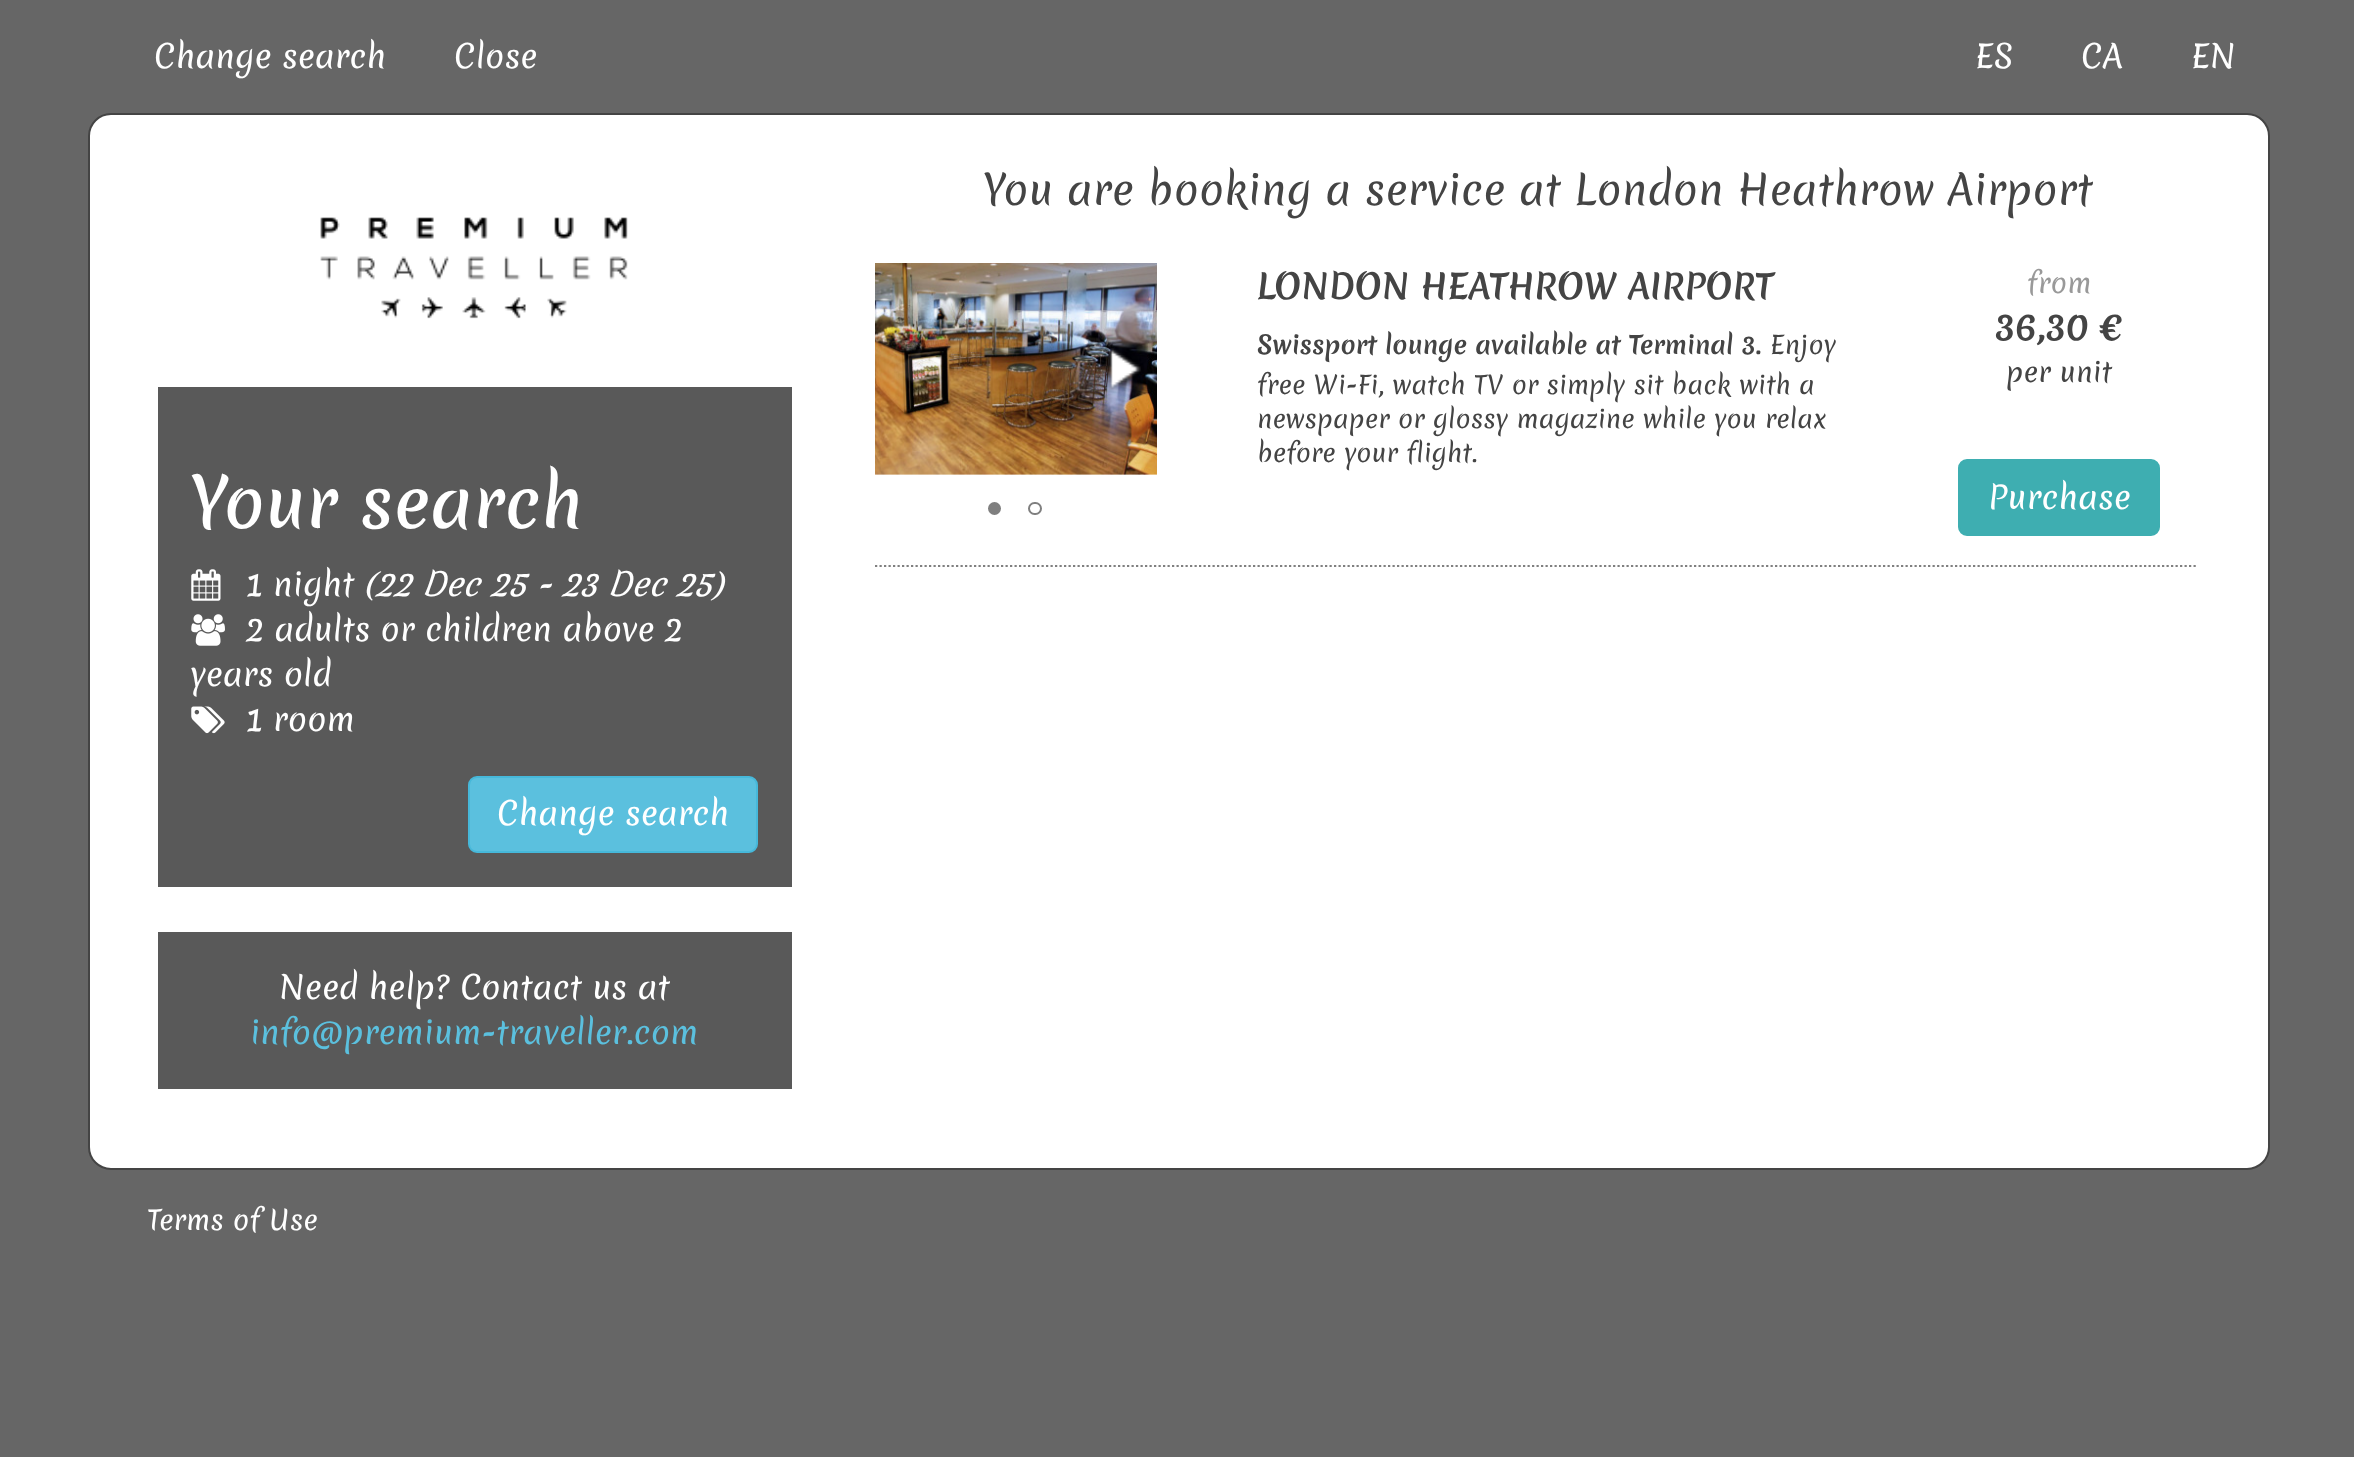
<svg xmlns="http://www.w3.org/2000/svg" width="2354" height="1457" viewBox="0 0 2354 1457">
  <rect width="100%" height="100%" fill="#666"/>
  <rect x="89" y="114" width="2180" height="1055" rx="22" fill="#fff" stroke="#444" stroke-width="2"/>
  <path d="M875 566H2198" fill="none" stroke="#808080" stroke-width="2.2" stroke-dasharray="2.25 2.25"/>
  <image x="875" y="263" width="282" height="212" href="img/1.png"/>
  <image x="894" y="350" width="29" height="38" href="img/2.png"/>
  <image x="1102" y="348" width="39" height="45" href="img/3.png"/>
  <circle cx="994.5" cy="508.5" r="6.5" fill="#7f7f7f"/>
  <rect x="1029" y="503" width="12" height="11" rx="5.5" fill="none" stroke="#7f7f7f" stroke-width="2"/>
  <rect x="1959" y="460" width="200" height="75" rx="8" fill="#3eaeb1" stroke="#3eaeb1" stroke-width="2"/>
  <image x="320" y="217" width="308" height="102" href="img/4.png"/>
  <path d="M158 387h634v500H158z" fill="#595959"/>
  <image x="191" y="569" width="30" height="32" href="img/5.png"/>
  <image x="191" y="614" width="34" height="32" href="img/6.png"/>
  <image x="191" y="706" width="34" height="28" href="img/7.png"/>
  <rect x="469" y="777" width="288" height="75" rx="8" fill="#5bc0de" stroke="#46b8da" stroke-width="2"/>
  <path d="M158 932h634v157H158z" fill="#595959"/>
  <g font-family="Merienda" font-size="31.5" fill="#fff">
    <text x="154" y="68">Change search</text>
    <text x="454" y="68">Close</text>
    <text x="1975" y="68">ES</text>
    <text x="2081" y="68">CA</text>
    <text x="2191" y="68">EN</text>
  </g>
  <text x="983" y="205" font-family="Merienda" font-size="40.95" fill="#444">You are booking a service at London Heathrow Airport</text>
  <text x="1257" y="299" font-family="Merienda" font-size="33.75" font-weight="bold" fill="#444">LONDON HEATHROW AIRPORT</text>
  <text x="1257" y="354" font-family="Merienda" font-size="24.75" font-weight="bold" fill="#444">Swissport lounge available at Terminal 3.</text>
  <g font-family="Merienda" font-size="24.75" fill="#444">
    <text x="1770" y="354">Enjoy</text>
    <text x="1257" y="394">free Wi-Fi, watch TV or simply sit back with a</text>
    <text x="1257" y="428">newspaper or glossy magazine while you relax</text>
    <text x="1257" y="462">before your flight.</text>
  </g>
  <text x="2027" y="293" font-family="Merienda" font-size="27" fill="#999">from</text>
  <text x="1995" y="340" font-family="Merienda" font-size="36" font-weight="bold" fill="#444">36,30 €</text>
  <text x="2006" y="382" font-family="Merienda" font-size="27" fill="#444">per unit</text>
  <text x="1988" y="509" font-family="Merienda" font-size="31.5" fill="#fff">Purchase</text>
  <text x="190" y="528" font-family="Merienda" font-size="67.5" font-weight="500" fill="#fff">Your search</text>
  <text x="246" y="596" font-family="Merienda" font-size="31.5" fill="#fff">1 night</text>
  <text x="364" y="596" font-family="Merienda" font-size="31.5" font-style="italic" fill="#fff">(22 Dec 25 - 23 Dec 25)</text>
  <g font-family="Merienda" font-size="31.5" fill="#fff">
    <text x="246" y="641">2 adults or children above 2</text>
    <text x="190" y="686">years old</text>
    <text x="246" y="731">1 room</text>
    <text x="497" y="825">Change search</text>
    <text x="279" y="999">Need help? Contact us at</text>
  </g>
  <text x="250" y="1044" font-family="Merienda" font-size="31.5" fill="#5bc0de">info@premium-traveller.com</text>
  <text x="147" y="1230" font-family="Merienda" font-size="27" fill="#fff">Terms of Use</text>
</svg>
